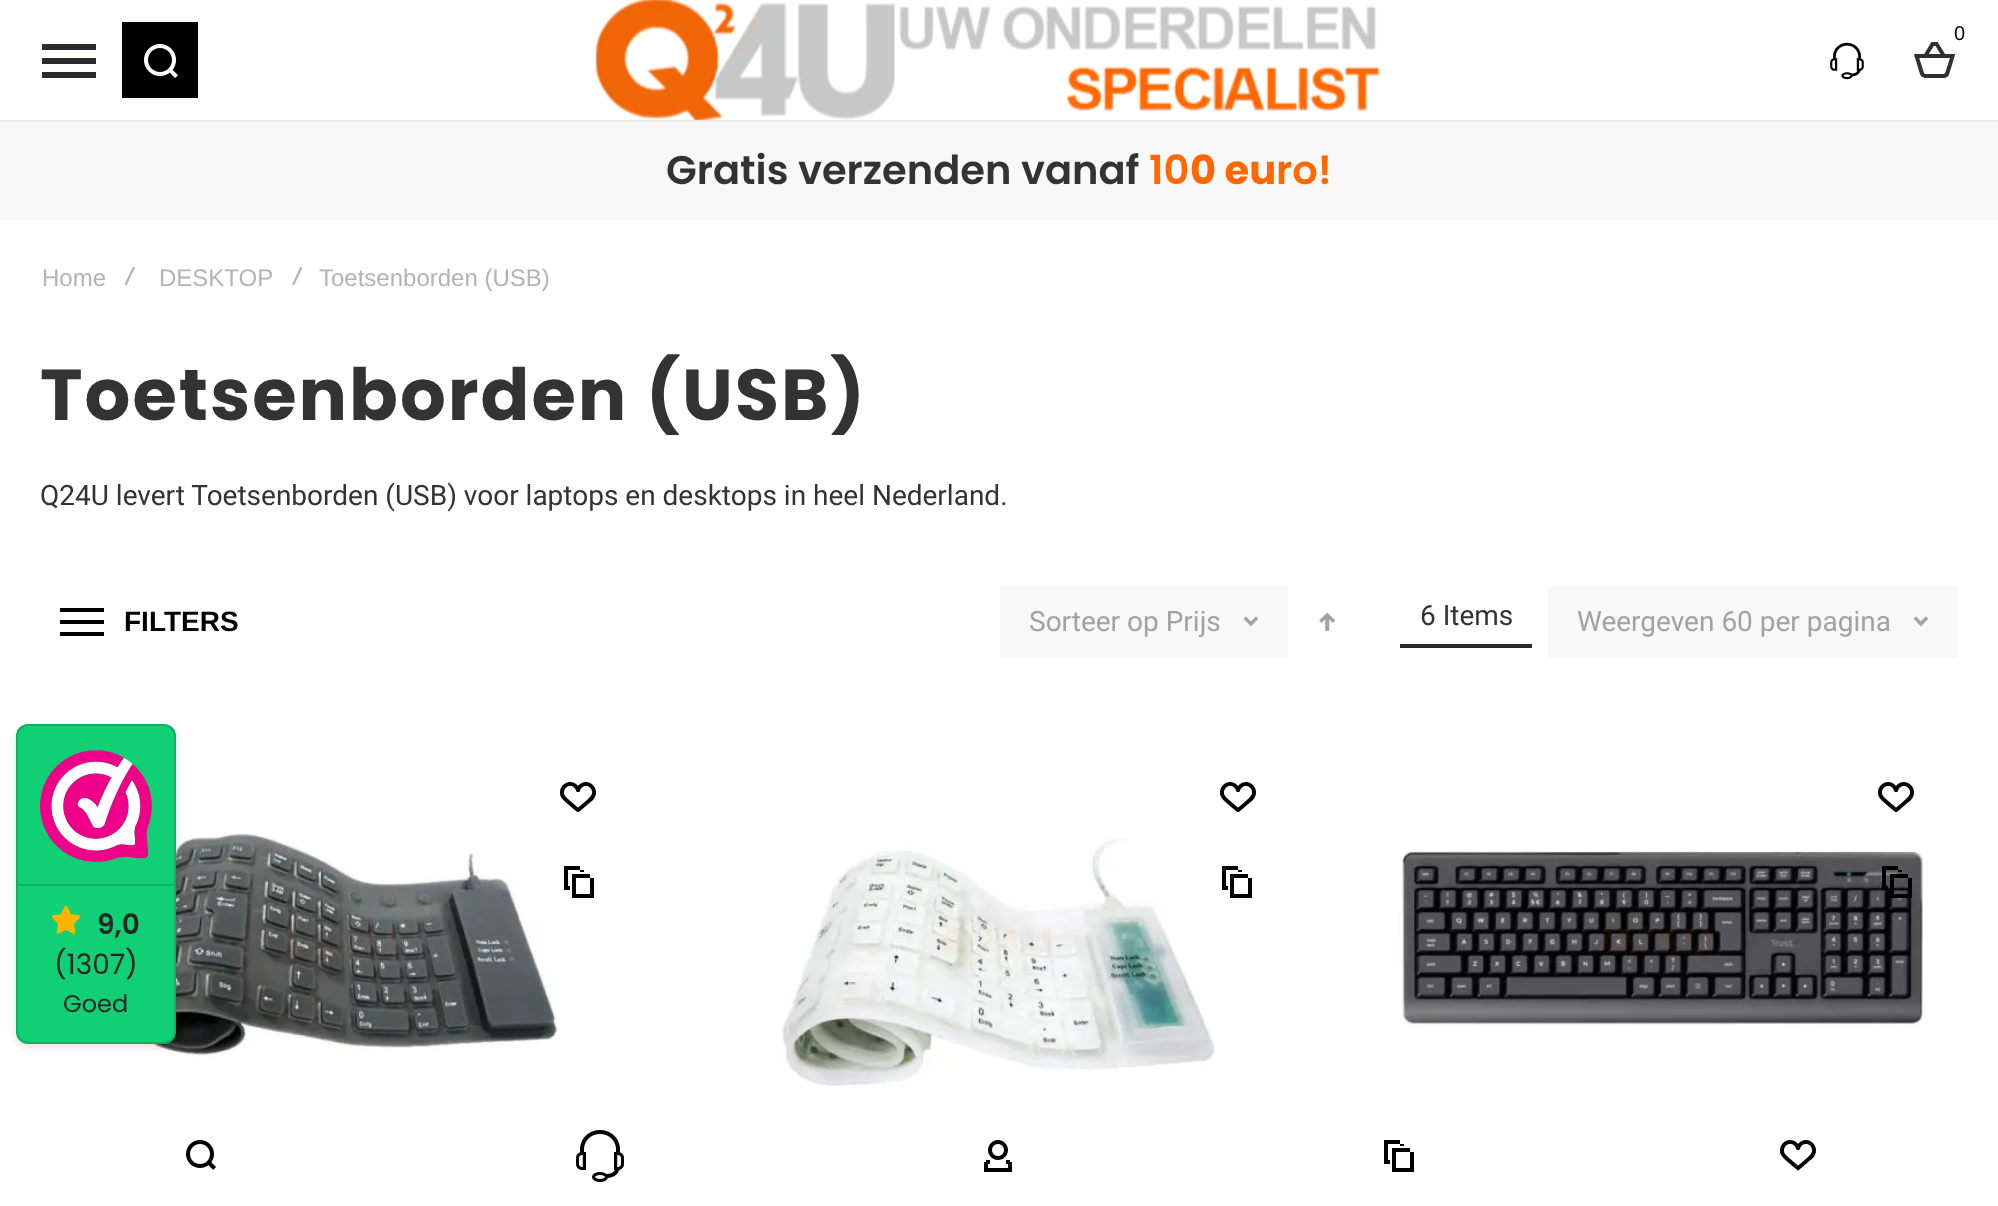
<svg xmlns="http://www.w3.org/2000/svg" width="1998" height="1206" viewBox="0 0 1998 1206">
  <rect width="100%" height="100%" fill="#fff"/>
  <path d="M0 120h1998v2H0z" fill="#ededed"/>
  <image x="595" y="0" width="785" height="120" href="img/1.png"/>
  <path d="M122 22h76v76H122z" fill="#000"/>
  <image x="144" y="44" width="34" height="34" href="img/2.png"/>
  <image x="1914" y="42" width="42" height="36" href="img/3.png"/>
  <image x="1830" y="42" width="34" height="38" href="img/4.png"/>
  <path d="M42 44h54v6H42z" fill="#2c2930"/>
  <path d="M42 58h54v6H42z" fill="#2c2930"/>
  <path d="M42 72h54v6H42z" fill="#2c2930"/>
  <path d="M0 122h1998v98H0z" fill="#f8f8f8"/>
  <path d="M133 266.5L135 267.5L126.5 285.5L124.5 284.5Z" fill="#b3b3b3"/>
  <path d="M300.5 266.5L302.5 267.5L294 285.5L292 284.5Z" fill="#b3b3b3"/>
  <path d="M60 608h44v4H60z" fill="#000"/>
  <path d="M60 620h44v4H60z" fill="#000"/>
  <path d="M60 632h44v4H60z" fill="#000"/>
  <path d="M1000 586h288v72H1000z" fill="#f8f8f8"/>
  <image x="1243" y="616" width="16" height="11" href="img/5.png"/>
  <image x="1319" y="612" width="17" height="19" href="img/6.png"/>
  <path d="M1400 644h132v4H1400z" fill="#2c2930"/>
  <path d="M1548 586h410v72H1548z" fill="#f8f8f8"/>
  <image x="1913" y="616" width="16" height="11" href="img/5.png"/>
  <image x="136" y="833" width="424" height="224" href="img/7.png"/>
  <image x="560" y="782" width="36" height="30" href="img/8.png"/>
  <image x="564" y="866" width="30" height="32" href="img/9.png"/>
  <image x="782" y="838" width="433" height="248" href="img/10.png"/>
  <image x="1220" y="782" width="36" height="30" href="img/8.png"/>
  <image x="1222" y="866" width="30" height="32" href="img/9.png"/>
  <image x="1878" y="782" width="36" height="30" href="img/8.png"/>
  <image x="1399" y="851" width="525" height="175" href="img/12.png"/>
  <image x="1882" y="866" width="30" height="32" href="img/11.png"/>
  <rect x="16" y="728" width="160" height="320" rx="12" fill="#0000001a" filter="blur(4px)"/>
  <rect x="16" y="724" width="160" height="320" rx="12" fill="#10cf74"/>
  <rect x="17" y="725" width="158" height="318" rx="11" fill="none" stroke="#00000026" stroke-width="2"/>
  <image x="40" y="750" width="112" height="112" href="img/13.png"/>
  <path d="M18 884h156v2H18z" fill="#0eb063"/>
  <image x="52" y="906" width="28" height="28" href="img/14.png"/>
  <image x="186" y="1140" width="30" height="30" href="img/15.png"/>
  <image x="576" y="1130" width="48" height="52" href="img/16.png"/>
  <image x="984" y="1140" width="28" height="32" href="img/17.png"/>
  <image x="1384" y="1140" width="30" height="32" href="img/9.png"/>
  <image x="1780" y="1140" width="36" height="31" href="img/18.png"/>
  <text x="1954" y="40" font-family="Liberation Sans" font-size="20" fill="#000">0</text>
  <text x="666" y="184" font-family="Poppins" font-size="40" font-weight="600" fill="#333">Gratis verzenden vanaf</text>
  <text x="1149" y="184" font-family="Poppins" font-size="40" font-weight="600" fill="#ff6700">10</text>
  <text x="1190" y="184" font-family="Poppins" font-size="40" font-weight="bold" fill="#ff6700">0 eu</text>
  <text x="1276" y="184" font-family="Poppins" font-size="40" font-weight="600" fill="#ff6700">ro!</text>
  <g font-family="Liberation Sans" font-size="24" fill="#b3b3b3">
    <text x="42" y="286">Home</text>
    <text x="159" y="286">DESKTOP</text>
    <text x="319" y="286">Toetsenborden (USB)</text>
  </g>
  <text x="40" y="420" font-family="Poppins" font-size="72" font-weight="bold" letter-spacing="2" fill="#333">Toetsenborden (USB)</text>
  <text x="40" y="505" font-family="Roboto" font-size="28" fill="#333">Q24U levert Toetsenborden (USB) voor laptops en desktops in heel Nederland.</text>
  <text x="124" y="631" font-family="Liberation Sans" font-size="28" font-weight="bold" fill="#000">FILTERS</text>
  <text x="1029" y="631" font-family="Roboto" font-size="28" fill="#a2a2a2">Sorteer op Prijs</text>
  <text x="1420" y="625" font-family="Roboto" font-size="28" fill="#333">6 Items</text>
  <text x="1577" y="631" font-family="Roboto" font-size="28" fill="#a2a2a2">Weergeven 60 per pagina</text>
  <text x="97" y="934" font-family="Poppins" font-size="28" font-weight="600" fill="#272626">9,0</text>
  <text x="54" y="974" font-family="Poppins" font-size="28" fill="#272626">(1307)</text>
  <text x="63" y="1012" font-family="Poppins" font-size="24" fill="#272626">Goed</text>
</svg>
